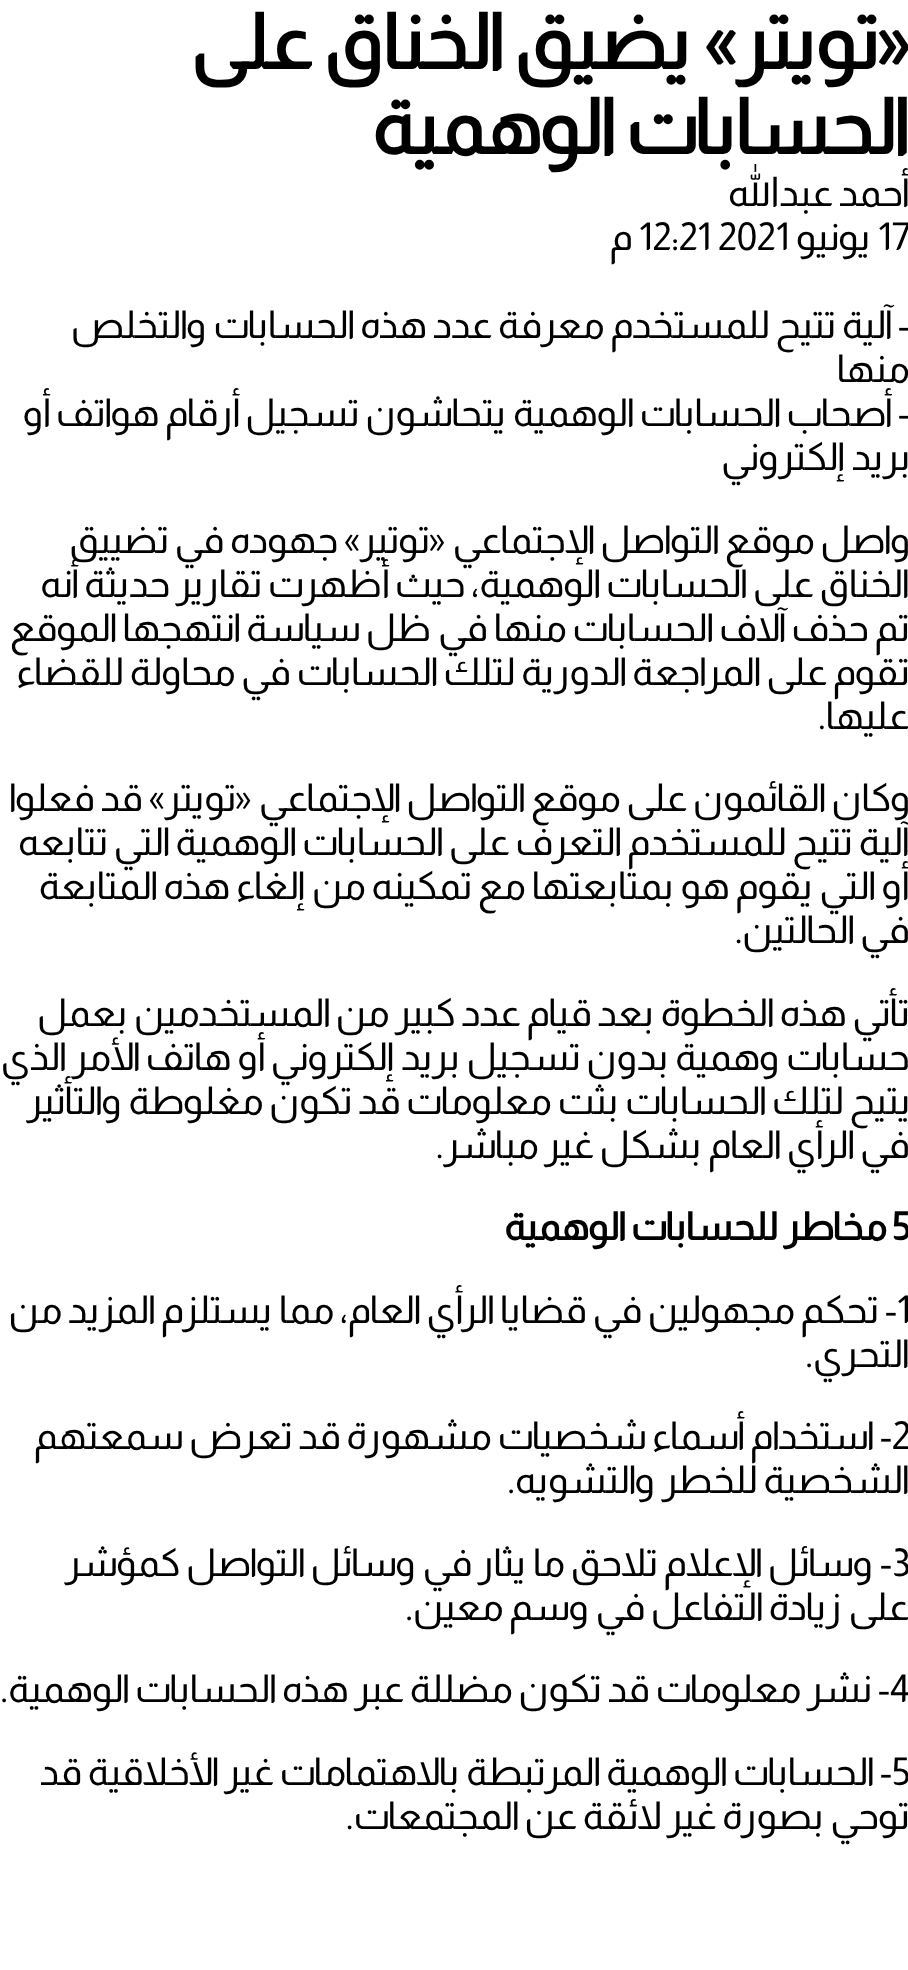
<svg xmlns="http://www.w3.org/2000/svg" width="908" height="1970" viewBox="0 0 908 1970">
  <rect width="100%" height="100%" fill="#fff"/>
  <g font-family="Almarai" font-size="77" font-weight="bold" direction="rtl" fill="#000">
    <text x="910" y="69">«تويتر» يضيق الخناق على</text>
    <text x="910" y="154">الحسابات الوهمية</text>
  </g>
  <text x="910" y="206" font-family="Almarai" font-size="38.5" direction="rtl" fill="#000">أحمد عبدالله</text>
  <text x="878" y="250" font-family="Almarai" font-size="38.5" fill="#000">17</text>
  <text x="870" y="250" font-family="Almarai" font-size="38.5" direction="rtl" fill="#000">يونيو</text>
  <text x="639" y="250" font-family="Almarai" font-size="38.5" fill="#000">12:21 2021</text>
  <g font-family="Almarai" font-size="38.5" direction="rtl" fill="#000">
    <text x="633" y="250">م</text>
    <text x="910" y="338">- آلية تتيح للمستخدم معرفة عدد هذه الحسابات والتخلص</text>
    <text x="910" y="382">منها</text>
    <text x="910" y="426">- أصحاب الحسابات الوهمية يتحاشون تسجيل أرقام هواتف أو</text>
    <text x="910" y="470">بريد إلكتروني</text>
    <text x="910" y="553">واصل موقع التواصل الإجتماعي «توتير» جهوده في تضييق</text>
    <text x="910" y="597">الخناق على الحسابات الوهمية، حيث أظهرت تقارير حديثة أنه</text>
    <text x="910" y="641">تم حذف آلاف الحسابات منها في ظل سياسة انتهجها الموقع</text>
    <text x="910" y="685">تقوم على المراجعة الدورية لتلك الحسابات في محاولة للقضاء</text>
    <text x="910" y="729">عليها.</text>
    <text x="910" y="811">وكان القائمون على موقع التواصل الإجتماعي «تويتر» قد فعلوا</text>
    <text x="910" y="855">آلية تتيح للمستخدم التعرف على الحسابات الوهمية التي تتابعه</text>
    <text x="910" y="899">أو التي يقوم هو بمتابعتها مع تمكينه من إلغاء هذه المتابعة</text>
    <text x="910" y="943">في الحالتين.</text>
    <text x="910" y="1026">تأتي هذه الخطوة بعد قيام عدد كبير من المستخدمين بعمل</text>
    <text x="910" y="1070">حسابات وهمية بدون تسجيل بريد إلكتروني أو هاتف الأمر الذي</text>
    <text x="910" y="1114">يتيح لتلك الحسابات بثت معلومات قد تكون مغلوطة والتأثير</text>
    <text x="910" y="1158">في الرأي العام بشكل غير مباشر.</text>
  </g>
  <text x="892" y="1240" font-family="Almarai" font-size="38.5" font-weight="bold" fill="#000">5</text>
  <text x="887" y="1240" font-family="Almarai" font-size="38.5" font-weight="bold" direction="rtl" fill="#000">مخاطر للحسابات الوهمية</text>
  <text x="897" y="1323" font-family="Almarai" font-size="38.5" fill="#000">1</text>
  <g font-family="Almarai" font-size="38.5" direction="rtl" fill="#000">
    <text x="897" y="1323">- تحكم مجهولين في قضايا الرأي العام، مما يستلزم المزيد من</text>
    <text x="910" y="1367">التحري.</text>
  </g>
  <text x="892" y="1449" font-family="Almarai" font-size="38.5" fill="#000">2</text>
  <g font-family="Almarai" font-size="38.5" direction="rtl" fill="#000">
    <text x="892" y="1449">- استخدام أسماء شخصيات مشهورة قد تعرض سمعتهم</text>
    <text x="910" y="1493">الشخصية للخطر والتشويه.</text>
  </g>
  <text x="892" y="1576" font-family="Almarai" font-size="38.5" fill="#000">3</text>
  <g font-family="Almarai" font-size="38.5" direction="rtl" fill="#000">
    <text x="892" y="1576">- وسائل الإعلام تلاحق ما يثار في وسائل التواصل كمؤشر</text>
    <text x="910" y="1620">على زيادة التفاعل في وسم معين.</text>
  </g>
  <text x="890" y="1702" font-family="Almarai" font-size="38.5" fill="#000">4</text>
  <text x="890" y="1702" font-family="Almarai" font-size="38.5" direction="rtl" fill="#000">- نشر معلومات قد تكون مضللة عبر هذه الحسابات الوهمية.</text>
  <text x="892" y="1785" font-family="Almarai" font-size="38.5" fill="#000">5</text>
  <g font-family="Almarai" font-size="38.5" direction="rtl" fill="#000">
    <text x="892" y="1785">- الحسابات الوهمية المرتبطة بالاهتمامات غير الأخلاقية قد</text>
    <text x="910" y="1829">توحي بصورة غير لائقة عن المجتمعات.</text>
  </g>
</svg>
